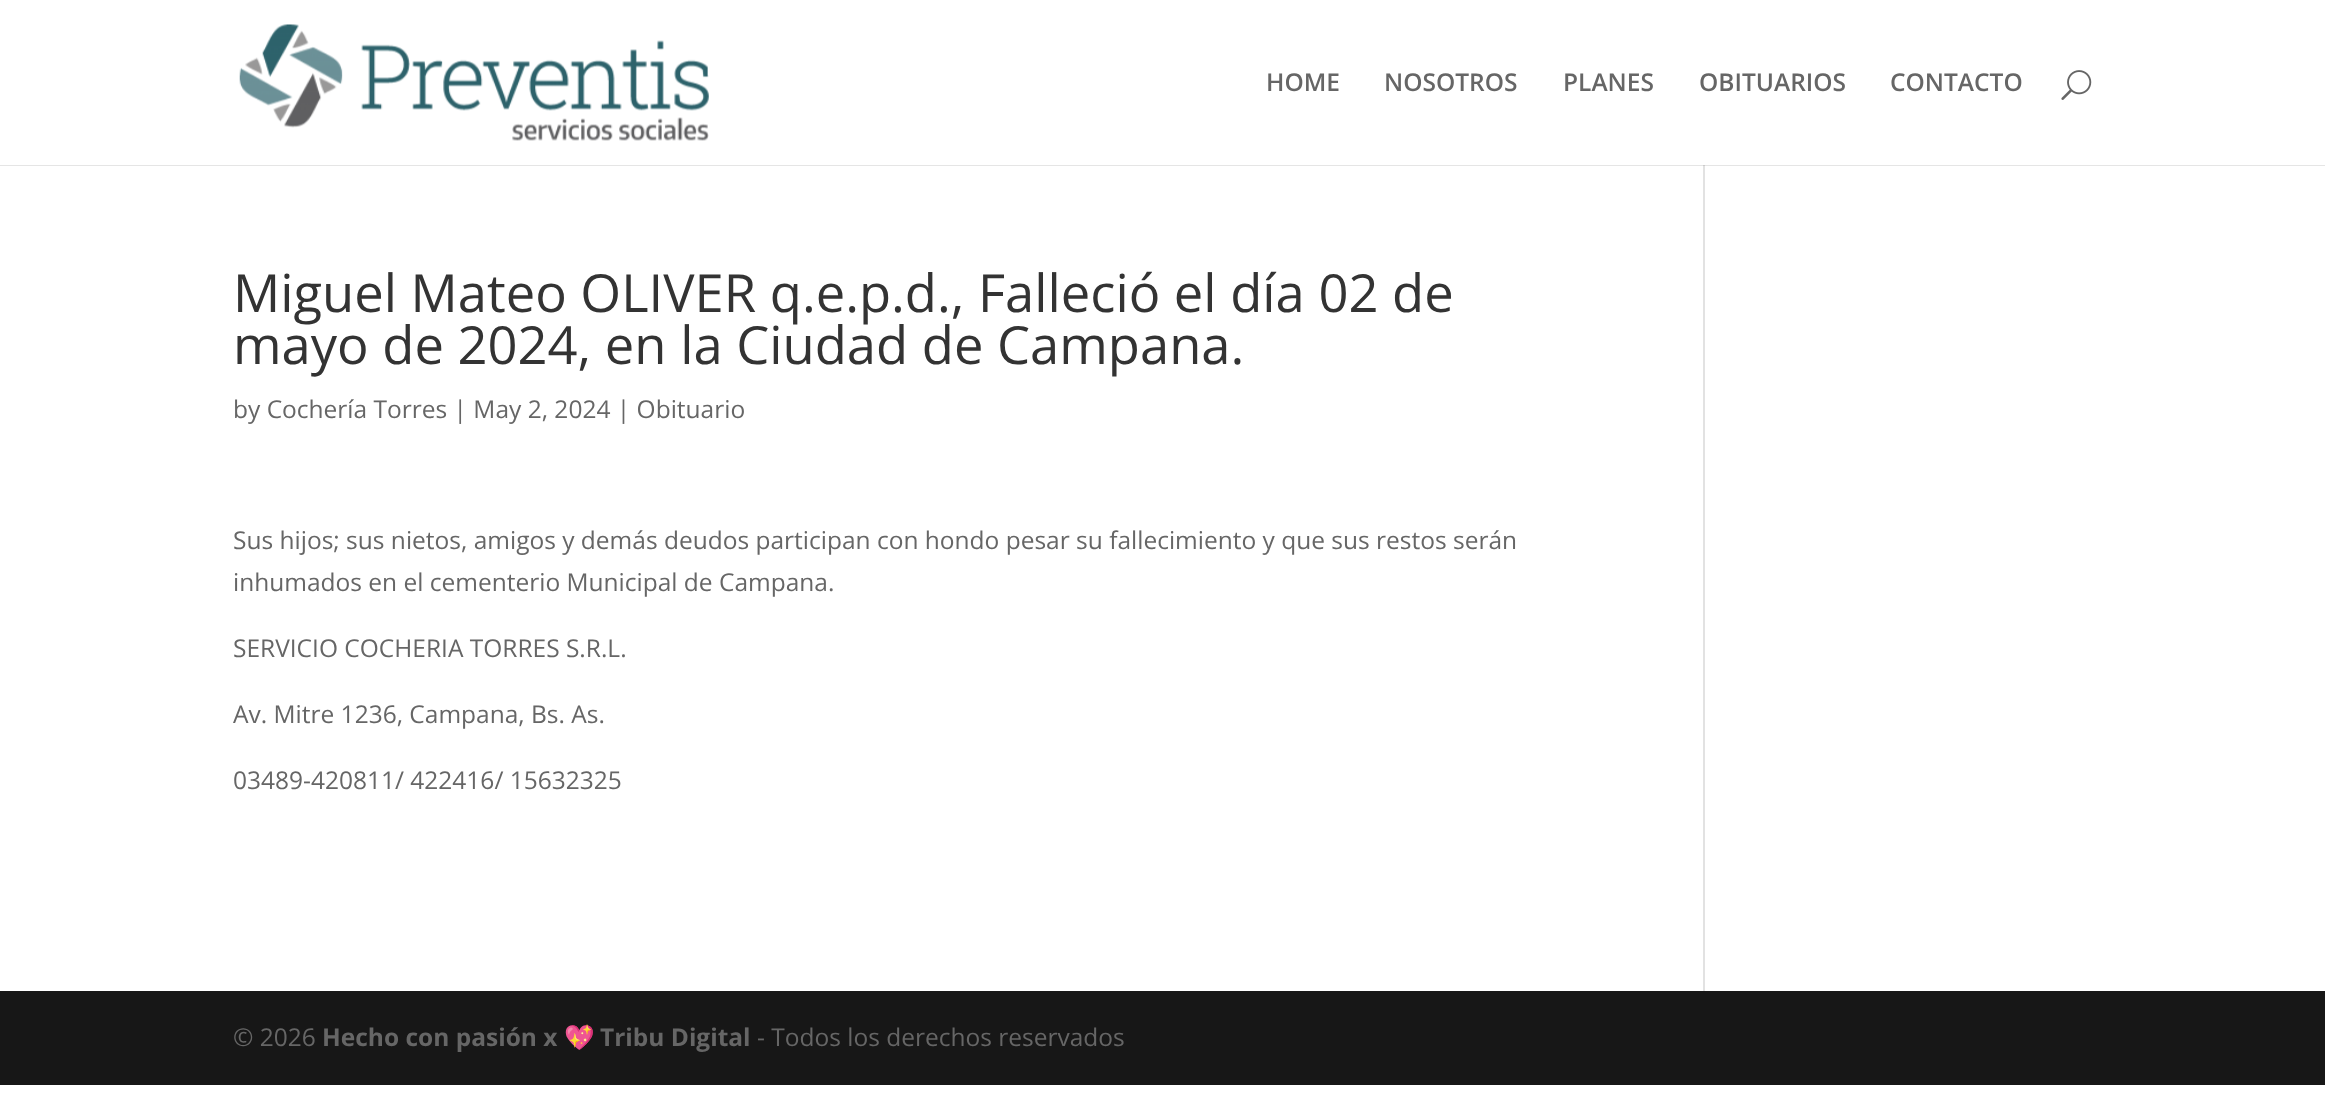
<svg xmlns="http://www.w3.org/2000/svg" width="2325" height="1097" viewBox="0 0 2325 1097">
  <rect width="100%" height="100%" fill="#fff"/>
  <path d="M1703 165h2v826H1703z" fill="#e2e2e2"/>
  <path d="M0 164V166H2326V2V164Z" fill="#0000001a"/>
  <path d="M0 164h2325v1H0z" fill="#fff"/>
  <image x="239" y="24" width="470" height="117" href="img/1.png"/>
  <image x="2061" y="70" width="31" height="30" href="img/2.png"/>
  <path d="M0 991h2325v94H0z" fill="#171717"/>
  <g font-family="Open Sans" font-size="24.5" font-weight="600" fill="#666">
    <text x="1266" y="91">HOME</text>
    <text x="1384" y="91">NOSOTROS</text>
    <text x="1563" y="91">PLANES</text>
    <text x="1699" y="91">OBITUARIOS</text>
    <text x="1890" y="91">CONTACTO</text>
  </g>
  <g font-family="Open Sans" font-size="52.5" fill="#333">
    <text x="233" y="312">Miguel Mateo OLIVER q.e.p.d., Falleció el día 02 de</text>
    <text x="233" y="364">mayo de 2024, en la Ciudad de Campana.</text>
  </g>
  <g font-family="Open Sans" font-size="24.5" fill="#666">
    <text x="233" y="418">by Cochería Torres | May 2, 2024 | Obituario</text>
    <text x="233" y="549">Sus hijos; sus nietos, amigos y demás deudos participan con hondo pesar su fallecimiento y que sus restos serán</text>
    <text x="233" y="591">inhumados en el cementerio Municipal de Campana.</text>
    <text x="233" y="657">SERVICIO COCHERIA TORRES S.R.L.</text>
    <text x="233" y="723">Av. Mitre 1236, Campana, Bs. As.</text>
    <text x="233" y="789">03489-420811/ 422416/ 15632325</text>
    <text x="233" y="1046">© 2026</text>
  </g>
  <text x="322" y="1046" font-family="Open Sans" font-size="24.5" font-weight="bold" fill="#666">Hecho con pasión x</text>
  <text x="564" y="1046" font-family="Noto Color Emoji" font-size="24.5" font-weight="bold" fill="#666">💖</text>
  <text x="600" y="1046" font-family="Open Sans" font-size="24.5" font-weight="bold" fill="#666">Tribu Digital</text>
  <text x="757" y="1046" font-family="Open Sans" font-size="24.5" fill="#666">- Todos los derechos reservados</text>
</svg>
